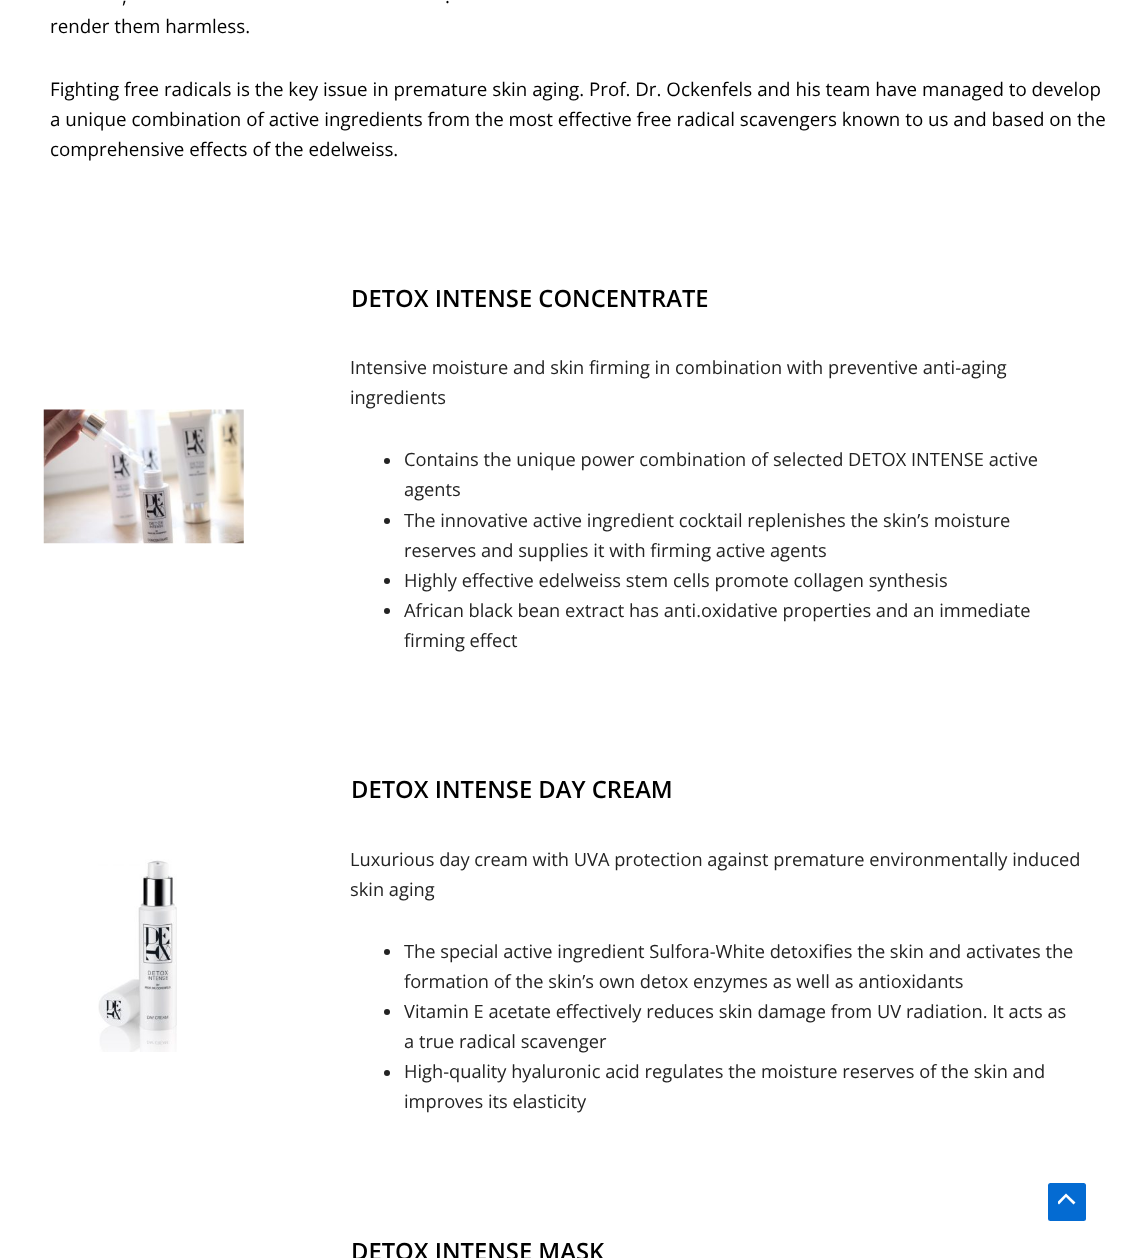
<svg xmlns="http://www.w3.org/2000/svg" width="1123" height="1258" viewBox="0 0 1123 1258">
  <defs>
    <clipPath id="clip1"><path d="M1058 1191h18v15H1058z"/></clipPath>
  </defs>
  <rect width="100%" height="100%" fill="#fff"/>
  <image x="43" y="409" width="201" height="135" href="img/1.png"/>
  <circle cx="387" cy="461" r="3" fill="#232323"/>
  <circle cx="387" cy="521" r="3" fill="#232323"/>
  <circle cx="387" cy="581" r="3" fill="#232323"/>
  <circle cx="387" cy="611" r="3" fill="#232323"/>
  <image x="98" y="859" width="79" height="193" href="img/2.png"/>
  <circle cx="387" cy="952" r="3" fill="#232323"/>
  <circle cx="387" cy="1012" r="3" fill="#232323"/>
  <circle cx="387" cy="1073" r="3" fill="#232323"/>
  <rect x="1048" y="1183" width="38" height="38" rx="2.5" fill="#046bd2"/>
  <g clip-path="url(#clip1)">
    <path d="M1075.5 1202.5L1066 1193.5L1057 1202.5L1059 1204.5L1066 1197L1073.5 1204.5Z" fill="#fff"/>
  </g>
  <g font-family="Open Sans" font-size="18.75" fill="#000">
    <text x="122" y="3">,</text>
    <text x="445" y="3">.</text>
    <text x="50" y="33">render them harmless.</text>
    <text x="50" y="96">Fighting free radicals is the key issue in premature skin aging. Prof. Dr. Ockenfels and his team have managed to develop</text>
    <text x="50" y="126">a unique combination of active ingredients from the most effective free radical scavengers known to us and based on the</text>
    <text x="50" y="156">comprehensive effects of the edelweiss.</text>
  </g>
  <text x="351" y="307" font-family="Open Sans" font-size="23.75" font-weight="600" fill="#000">DETOX INTENSE CONCENTRATE</text>
  <g font-family="Open Sans" font-size="18.25" fill="#232323">
    <text x="350" y="374">Intensive moisture and skin firming in combination with preventive anti-aging</text>
    <text x="350" y="404">ingredients</text>
    <text x="404" y="466">Contains the unique power combination of selected DETOX INTENSE active</text>
    <text x="404" y="496">agents</text>
    <text x="404" y="527">The innovative active ingredient cocktail replenishes the skin’s moisture</text>
    <text x="404" y="557">reserves and supplies it with firming active agents</text>
    <text x="404" y="587">Highly effective edelweiss stem cells promote collagen synthesis</text>
    <text x="404" y="617">African black bean extract has anti.oxidative properties and an immediate</text>
    <text x="404" y="647">firming effect</text>
  </g>
  <text x="351" y="798" font-family="Open Sans" font-size="23.75" font-weight="600" fill="#000">DETOX INTENSE DAY CREAM</text>
  <g font-family="Open Sans" font-size="18.25" fill="#232323">
    <text x="350" y="866">Luxurious day cream with UVA protection against premature environmentally induced</text>
    <text x="350" y="896">skin aging</text>
    <text x="404" y="958">The special active ingredient Sulfora-White detoxifies the skin and activates the</text>
    <text x="404" y="988">formation of the skin’s own detox enzymes as well as antioxidants</text>
    <text x="404" y="1018">Vitamin E acetate effectively reduces skin damage from UV radiation. It acts as</text>
    <text x="404" y="1048">a true radical scavenger</text>
    <text x="404" y="1078">High-quality hyaluronic acid regulates the moisture reserves of the skin and</text>
    <text x="404" y="1108">improves its elasticity</text>
  </g>
  <text x="351" y="1260" font-family="Open Sans" font-size="23.75" font-weight="600" fill="#000">DETOX INTENSE MASK</text>
</svg>
